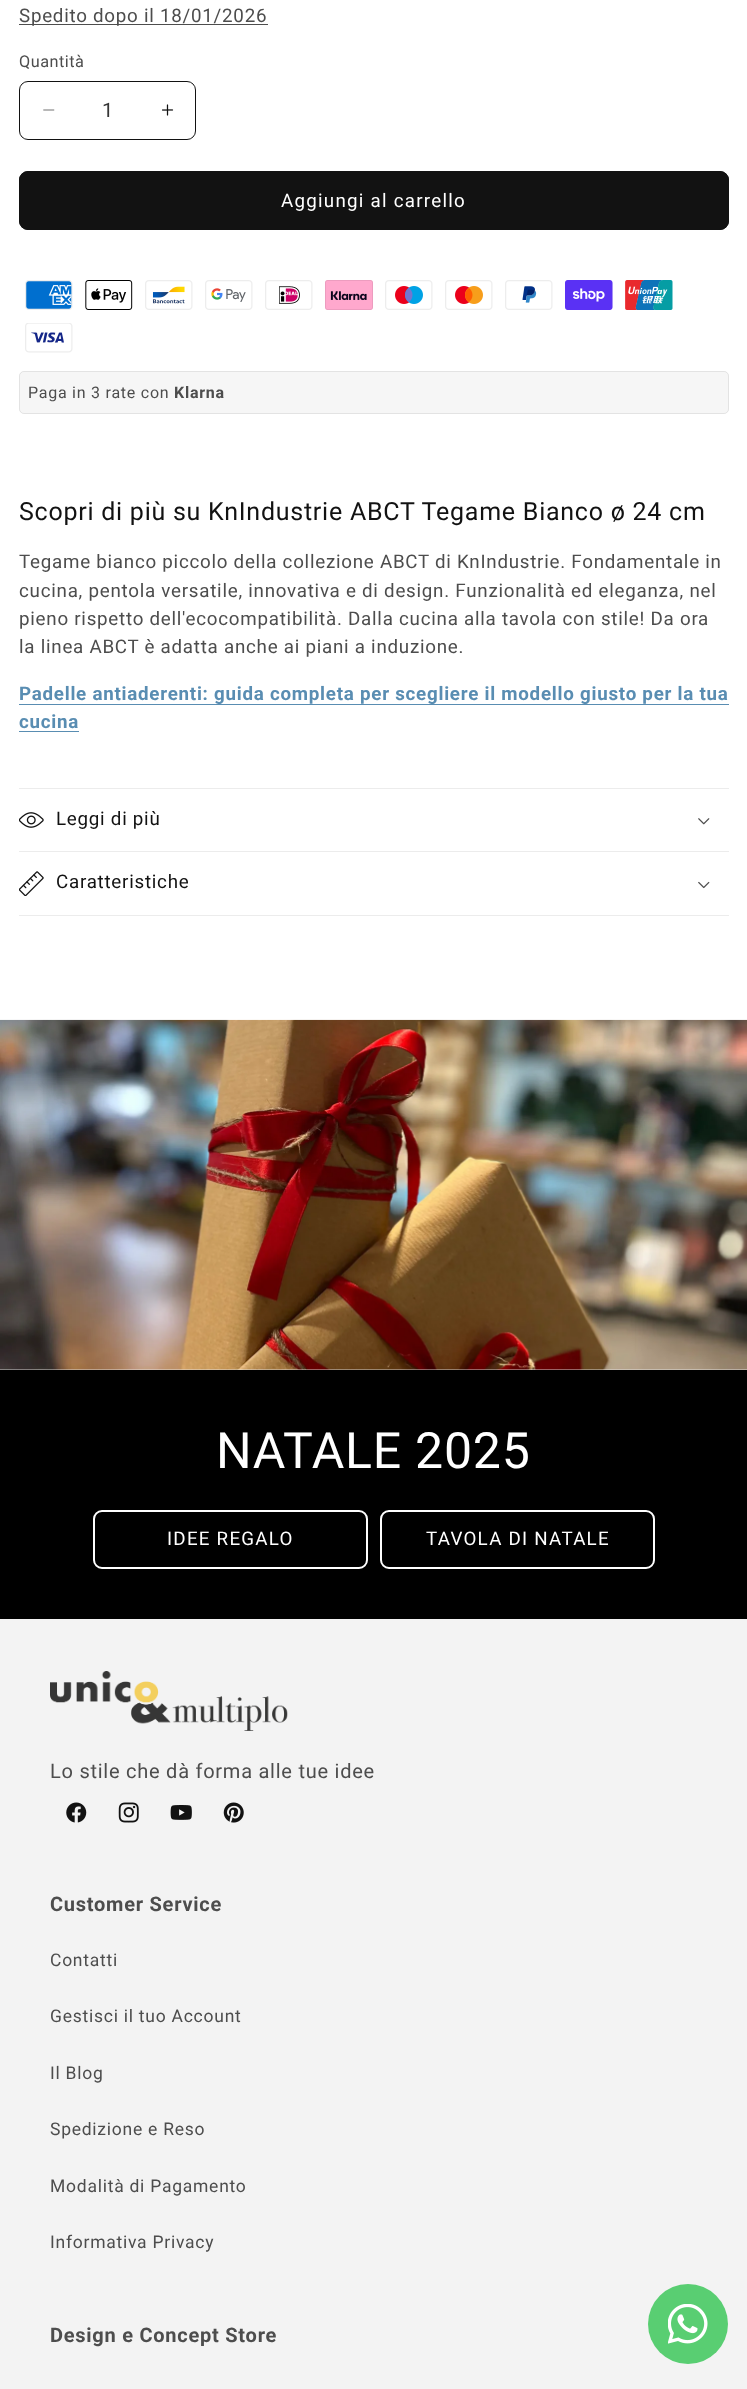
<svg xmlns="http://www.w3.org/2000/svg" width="747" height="2389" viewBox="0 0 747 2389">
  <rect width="100%" height="100%" fill="#fff"/>
  <path d="M19 24h249v1H19z" fill="#4d4d4d"/>
  <image x="43" y="109" width="12" height="2" href="img/1.png"/>
  <image x="162" y="104" width="12" height="12" href="img/2.png"/>
  <rect x="19.5" y="81.5" width="176" height="58" rx="8.5" fill="none" stroke="#121212"/>
  <rect x="19" y="171" width="710" height="59" rx="9" fill="#121212"/>
  <rect x="19.5" y="171.5" width="709" height="58" rx="8.5" fill="none" stroke="#121212"/>
  <image x="25" y="280" width="48" height="30" href="img/3.png"/>
  <image x="85" y="280" width="48" height="30" href="img/4.png"/>
  <image x="145" y="280" width="48" height="30" href="img/5.png"/>
  <image x="205" y="280" width="48" height="30" href="img/6.png"/>
  <image x="265" y="280" width="48" height="30" href="img/7.png"/>
  <image x="325" y="280" width="48" height="30" href="img/8.png"/>
  <image x="385" y="280" width="48" height="30" href="img/9.png"/>
  <image x="445" y="280" width="48" height="30" href="img/10.png"/>
  <image x="505" y="280" width="48" height="30" href="img/11.png"/>
  <image x="565" y="280" width="48" height="30" href="img/12.png"/>
  <image x="625" y="280" width="48" height="30" href="img/13.png"/>
  <image x="25" y="323" width="48" height="30" href="img/14.png"/>
  <rect x="19" y="371" width="710" height="43" rx="5" fill="#f6f6f6"/>
  <rect x="19.5" y="371.5" width="709" height="42" rx="4.5" fill="none" stroke="#12121214"/>
  <path d="M19 704h710v1H19z" fill="#598db2"/>
  <path d="M19 731h60v1H19z" fill="#598db2"/>
  <path d="M19 788h710v1H19z" fill="#ececec"/>
  <path d="M19 851h710v1H19z" fill="#ececec"/>
  <image x="19" y="812" width="25" height="16" href="img/15.png"/>
  <image x="698" y="818" width="12" height="7" href="img/16.png"/>
  <path d="M19 915h710v1H19z" fill="#ececec"/>
  <image x="19" y="871" width="25" height="25" href="img/17.png"/>
  <image x="698" y="881" width="12" height="8" href="img/18.png"/>
  <path d="M0 1369h747v1H0z" fill="#e8e8e8"/>
  <image x="0" y="1019" width="747" height="351" href="img/19.png"/>
  <path d="M0 1370h747v249H0z" fill="#000"/>
  <rect x="94" y="1511" width="273" height="57" rx="8" fill="none" stroke="#fff" stroke-width="2"/>
  <rect x="381" y="1511" width="273" height="57" rx="8" fill="none" stroke="#fff" stroke-width="2"/>
  <path d="M0 1619h747v770H0z" fill="#f3f3f3"/>
  <image x="50" y="1671" width="238" height="60" href="img/20.png"/>
  <image x="66" y="1802" width="21" height="21" href="img/21.png"/>
  <image x="118" y="1802" width="21" height="21" href="img/22.png"/>
  <image x="170" y="1805" width="22" height="15" href="img/23.png"/>
  <image x="223" y="1802" width="21" height="21" href="img/24.png"/>
  <circle cx="688" cy="2324" r="40" fill="#59ce72"/>
  <image x="668" y="2304" width="40" height="40" href="img/25.png"/>
  <text x="19" y="22" font-family="Roboto" font-size="18.75" letter-spacing="0.75" fill="#4d4d4d">Spedito dopo il 18/01/2026</text>
  <text x="19" y="67" font-family="Roboto" font-size="16.25" letter-spacing="0.5" fill="#4d4d4d">Quantità</text>
  <text x="102" y="117" font-family="Roboto" font-size="20" fill="#363636">1</text>
  <text x="281" y="207" font-family="Roboto" font-size="18.75" letter-spacing="1.25" fill="#fff">Aggiungi al carrello</text>
  <text x="28" y="398" font-family="Roboto" font-size="16" letter-spacing="0.75" fill="#4d4d4d">Paga in 3 rate con</text>
  <text x="174" y="398" font-family="Roboto" font-size="16" font-weight="bold" letter-spacing="0.75" fill="#4d4d4d">Klarna</text>
  <text x="19" y="520" font-family="Roboto" font-size="25" letter-spacing="0.75" fill="#121212">Scopri di più su KnIndustrie ABCT Tegame Bianco ø 24 cm</text>
  <g font-family="Roboto" font-size="18.75" letter-spacing="0.75" fill="#4d4d4d">
    <text x="19" y="568">Tegame bianco piccolo della collezione ABCT di KnIndustrie. Fondamentale in</text>
    <text x="19" y="597">cucina, pentola versatile, innovativa e di design. Funzionalità ed eleganza, nel</text>
    <text x="19" y="625">pieno rispetto dell'ecocompatibilità. Dalla cucina alla tavola con stile! Da ora</text>
    <text x="19" y="653">la linea ABCT è adatta anche ai piani a induzione.</text>
  </g>
  <g font-family="Roboto" font-size="18.75" font-weight="bold" letter-spacing="0.75" fill="#598db2">
    <text x="19" y="700">Padelle antiaderenti: guida completa per scegliere il modello giusto per la tua</text>
    <text x="19" y="728">cucina</text>
  </g>
  <g font-family="Roboto" font-size="18.75" letter-spacing="0.75" fill="#121212">
    <text x="56" y="825">Leggi di più</text>
    <text x="56" y="888">Caratteristiche</text>
  </g>
  <text x="216" y="1468" font-family="Roboto" font-size="50" letter-spacing="0.75" fill="#fff">NATALE 2025</text>
  <g font-family="Roboto" font-size="18.75" letter-spacing="1.25" fill="#fff">
    <text x="167" y="1545">IDEE REGALO</text>
    <text x="426" y="1545">TAVOLA DI NATALE</text>
  </g>
  <text x="50" y="1778" font-family="Roboto" font-size="20" letter-spacing="0.75" fill="#4d4d4d">Lo stile che dà forma alle tue idee</text>
  <text x="50" y="1911" font-family="Roboto" font-size="20" font-weight="bold" letter-spacing="0.75" fill="#4d4d4d">Customer Service</text>
  <g font-family="Roboto" font-size="17.5" letter-spacing="0.75" fill="#4d4d4d">
    <text x="50" y="1966">Contatti</text>
    <text x="50" y="2022">Gestisci il tuo Account</text>
    <text x="50" y="2079">Il Blog</text>
    <text x="50" y="2135">Spedizione e Reso</text>
    <text x="50" y="2192">Modalità di Pagamento</text>
    <text x="50" y="2248">Informativa Privacy</text>
  </g>
  <text x="50" y="2342" font-family="Roboto" font-size="20" font-weight="bold" letter-spacing="0.75" fill="#4d4d4d">Design e Concept Store</text>
</svg>
